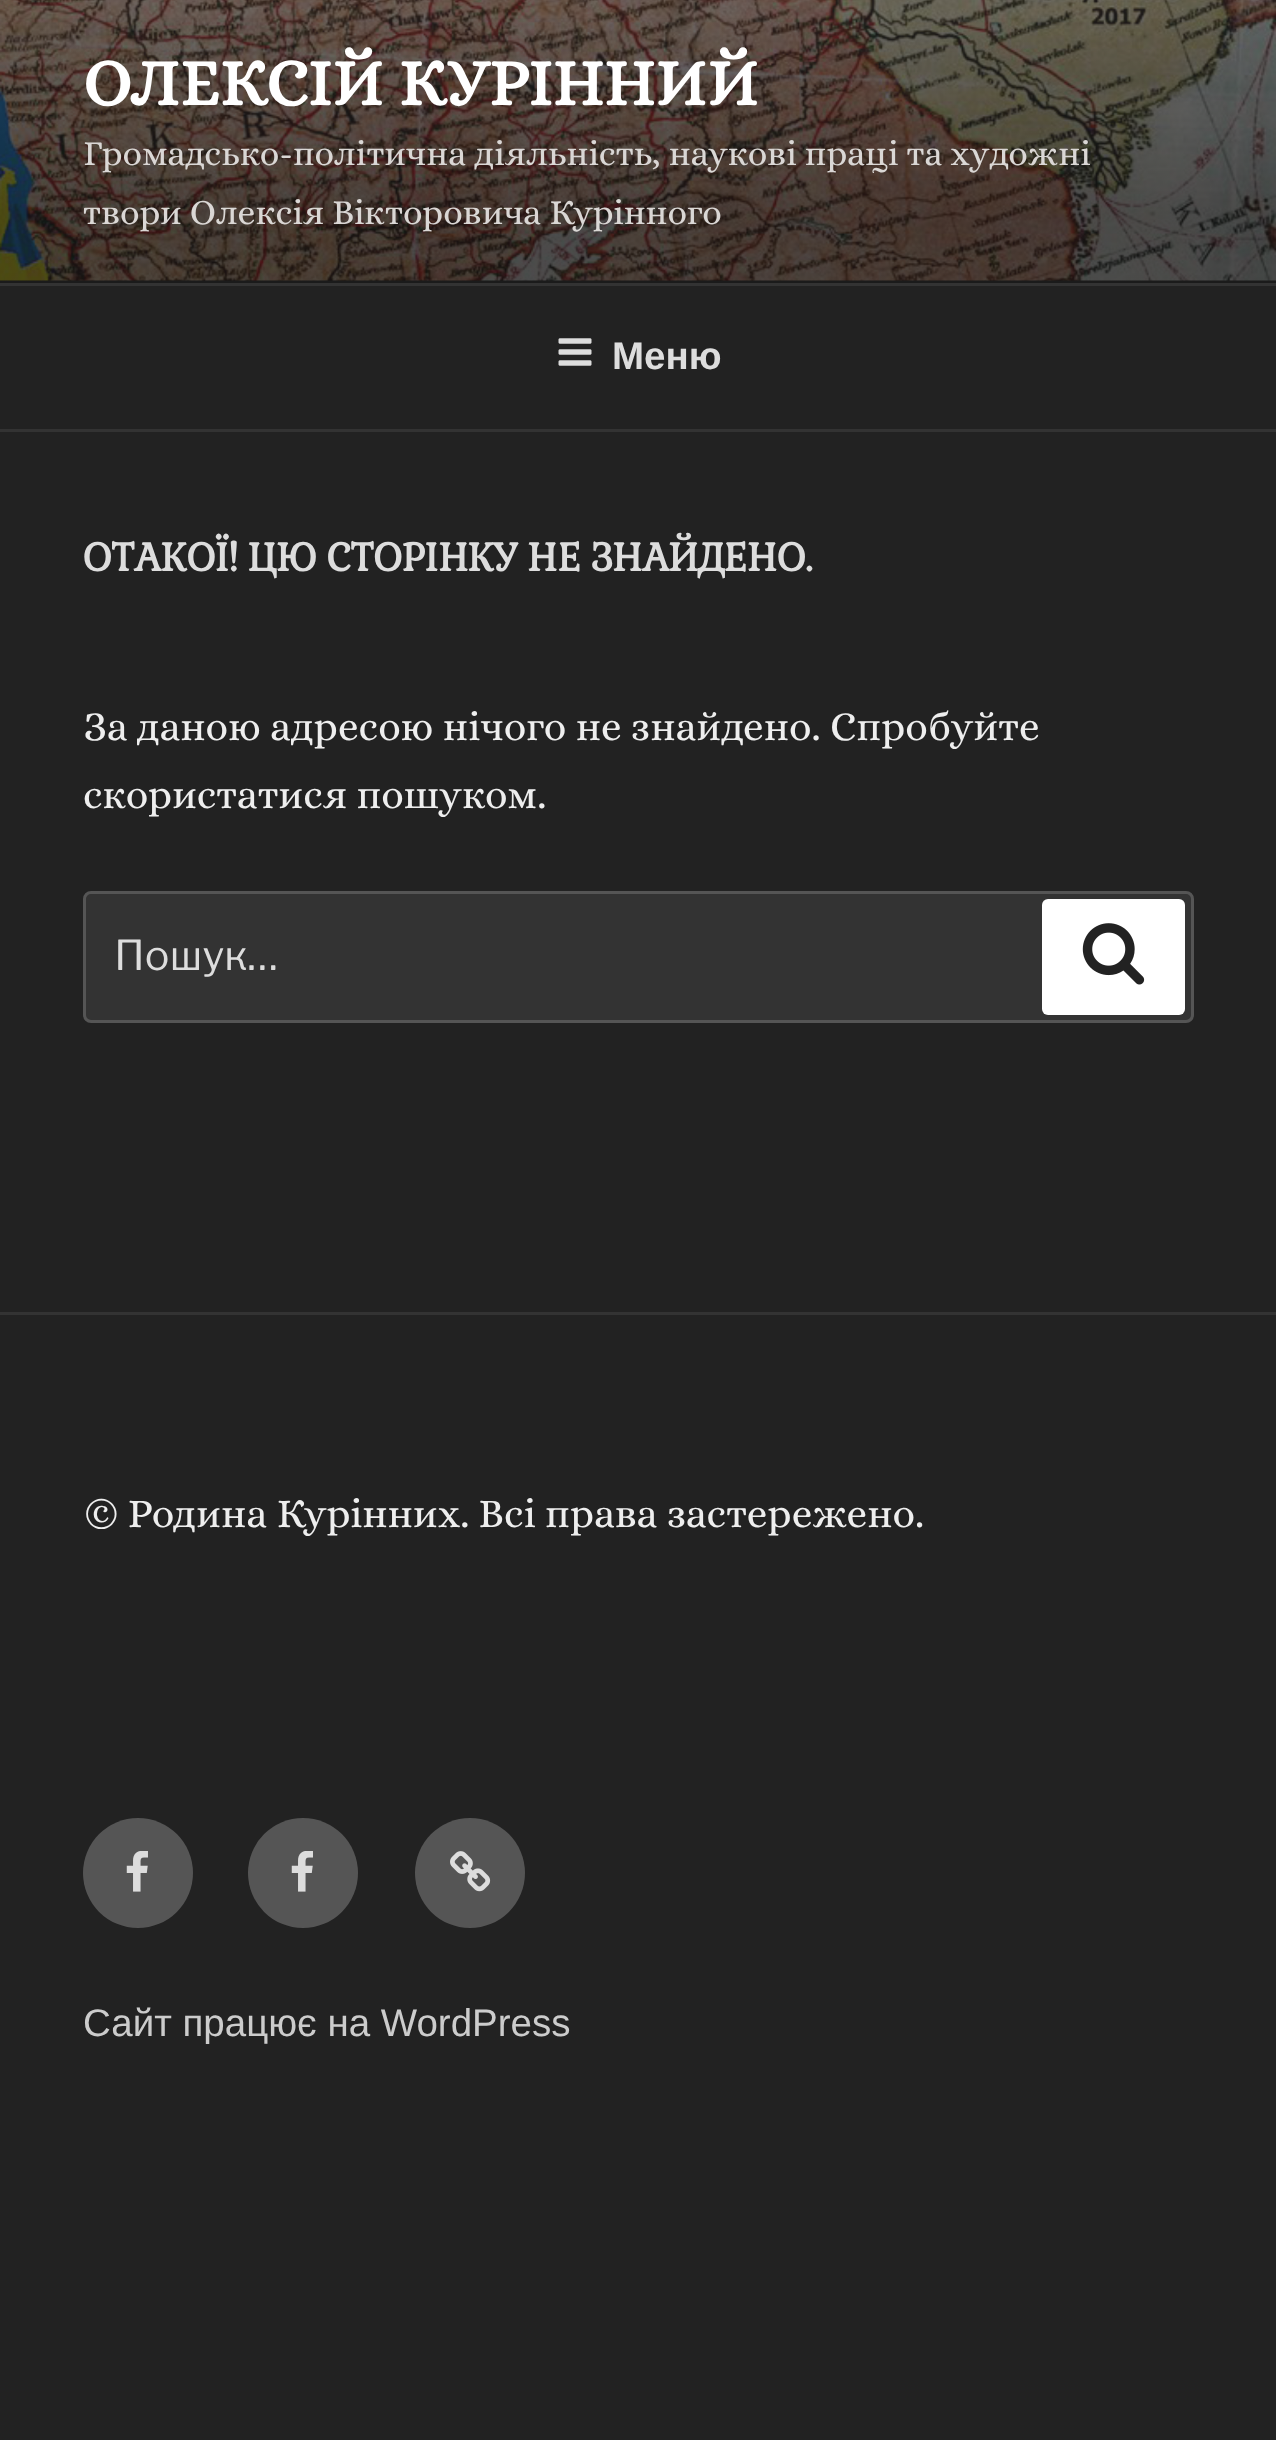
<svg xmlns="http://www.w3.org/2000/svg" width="1276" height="2440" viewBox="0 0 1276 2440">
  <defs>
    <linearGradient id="g1" gradientUnits="userSpaceOnUse" x1="638" y1="0" x2="638" y2="283"><stop offset="0" stop-color="#000" stop-opacity="0"/><stop offset="0.75" stop-color="#000" stop-opacity="0.3"/><stop offset="1" stop-color="#000" stop-opacity="0.3"/></linearGradient>
  </defs>
  <rect width="100%" height="100%" fill="#222"/>
  <path d="M0 0h1276v283H0z" fill="#262626"/>
  <image x="0" y="0" width="1276" height="281" href="img/1.png"/>
  <path d="M0 18h1276v265H0z" fill="url(#g1)"/>
  <path d="M0 283h1276v3H0z" fill="#333"/>
  <path d="M0 429h1276v3H0z" fill="#333"/>
  <image x="558" y="338" width="34" height="28" href="img/2.png"/>
  <rect x="84.5" y="892.5" width="1108" height="129" rx="6.5" fill="#333" stroke="#555" stroke-width="3"/>
  <rect x="1042" y="899" width="143" height="116" rx="6" fill="#fff"/>
  <image x="1082" y="923" width="63" height="62" href="img/3.png"/>
  <path d="M0 1312h1276v3H0z" fill="#333"/>
  <circle cx="138" cy="1873" r="55" fill="#555"/>
  <image x="126" y="1851" width="22" height="41" href="img/4.png"/>
  <circle cx="303" cy="1873" r="55" fill="#555"/>
  <image x="291" y="1851" width="22" height="41" href="img/4.png"/>
  <circle cx="470" cy="1873" r="55" fill="#555"/>
  <image x="450" y="1851" width="41" height="41" href="img/5.png"/>
  <text x="83" y="105" font-family="Alice" font-size="66" font-weight="bold" fill="#fff">ОЛЕКСІЙ КУРІННИЙ</text>
  <g font-family="Alice" font-size="35.75" fill="#dad7d5">
    <text x="83" y="165">Громадсько-політична діяльність, наукові праці та художні</text>
    <text x="83" y="224">твори Олексія Вікторовича Курінного</text>
  </g>
  <text x="612" y="369" font-family="Liberation Sans" font-size="38.5" font-weight="bold" fill="#ddd">Меню</text>
  <text x="83" y="571" font-family="Gabriela" font-size="38.5" font-weight="bold" fill="#ddd">ОТАКОЇ! ЦЮ СТОРІНКУ НЕ ЗНАЙДЕНО.</text>
  <g font-family="Alice" font-size="41.25" fill="#eee">
    <text x="83" y="740">За даною адресою нічого не знайдено. Спробуйте</text>
    <text x="83" y="808">скористатися пошуком.</text>
  </g>
  <text x="114" y="970" font-family="Libre Franklin" font-size="41.25" fill="#ddd">Пошук…</text>
  <text x="83" y="1527" font-family="Alice" font-size="41.25" fill="#eee">© Родина Курінних. Всі права застережено.</text>
  <text x="83" y="2036" font-family="Liberation Sans" font-size="38.5" fill="#ccc">Сайт працює на WordPress</text>
</svg>
